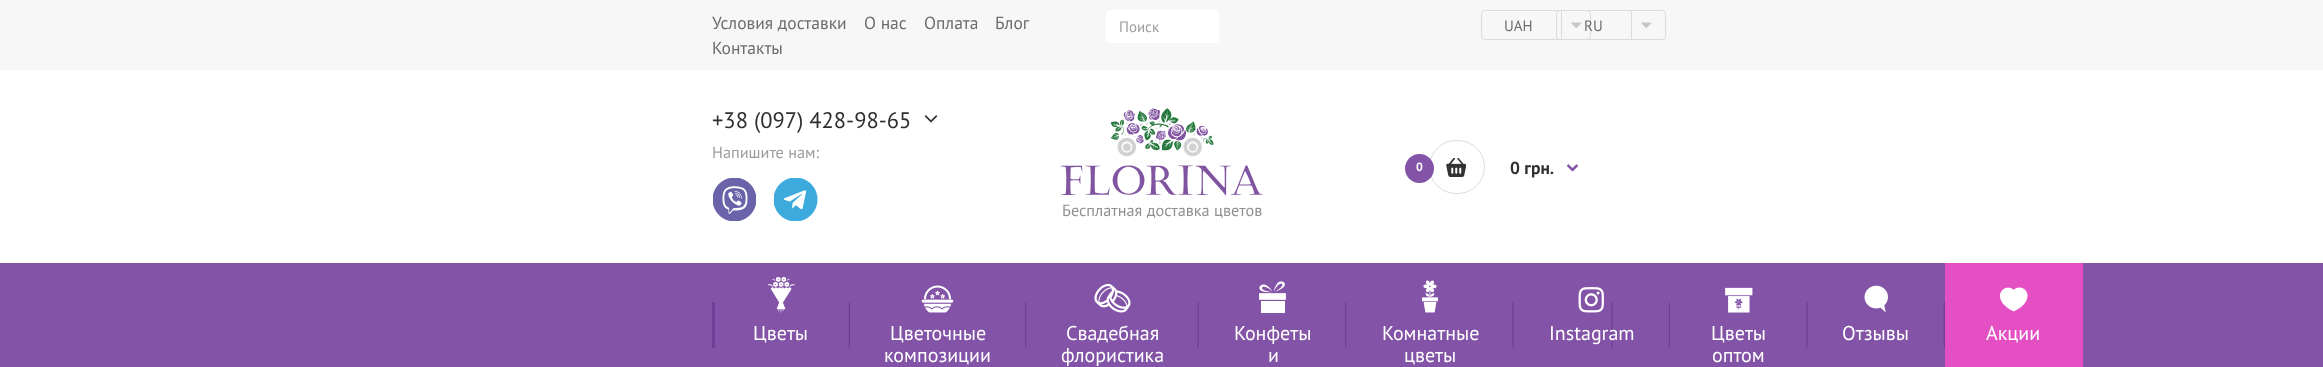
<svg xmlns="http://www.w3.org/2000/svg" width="2323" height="367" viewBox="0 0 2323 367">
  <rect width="100%" height="100%" fill="#fff"/>
  <path d="M0 0h2323v70H0z" fill="#f7f7f7"/>
  <rect x="1106" y="10" width="113" height="33" rx="4" fill="#fff"/>
  <rect x="1481.5" y="10.5" width="109" height="29" rx="3.5" fill="none" stroke="#dcdcdc"/>
  <path d="M1561 11h1v28H1561z" fill="#dcdcdc"/>
  <image x="1571" y="22" width="11" height="6" href="img/1.png"/>
  <rect x="1556.5" y="10.5" width="109" height="29" rx="3.5" fill="none" stroke="#dcdcdc"/>
  <path d="M1631 11h1v28H1631z" fill="#dcdcdc"/>
  <image x="1641" y="22" width="11" height="6" href="img/1.png"/>
  <image x="924" y="115" width="14" height="8" href="img/2.png"/>
  <image x="713" y="178" width="43" height="43" href="img/3.png"/>
  <image x="774" y="178" width="44" height="43" href="img/4.png"/>
  <rect x="1429.5" y="140.5" width="55" height="53" rx="26.5" fill="none" stroke="#dcdcdc"/>
  <circle cx="1419.5" cy="168.5" r="14.5" fill="#8253a7"/>
  <image x="1446" y="158" width="20" height="19" href="img/5.png"/>
  <image x="1566" y="164" width="13" height="8" href="img/6.png"/>
  <image x="1060" y="108" width="203" height="88" href="img/7.png"/>
  <path d="M0 263h2323v104H0z" fill="#8253a7"/>
  <image x="1611" y="302" width="2" height="46" href="img/8.png"/>
  <image x="848" y="302" width="2" height="46" href="img/9.png"/>
  <path d="M712 302h3v46H712z" fill="#6f3e96"/>
  <image x="767" y="276" width="28" height="37" href="img/10.png"/>
  <image x="1025" y="302" width="2" height="46" href="img/11.png"/>
  <image x="921" y="285" width="33" height="28" href="img/12.png"/>
  <image x="1197" y="302" width="2" height="46" href="img/13.png"/>
  <image x="1094" y="283" width="37" height="30" href="img/14.png"/>
  <image x="1345" y="302" width="2" height="46" href="img/11.png"/>
  <image x="1259" y="281" width="27" height="32" href="img/15.png"/>
  <image x="1512" y="302" width="2" height="46" href="img/13.png"/>
  <image x="1422" y="280" width="16" height="33" href="img/16.png"/>
  <image x="1668" y="302" width="2" height="46" href="img/9.png"/>
  <image x="1578" y="287" width="26" height="26" href="img/17.png"/>
  <image x="1806" y="302" width="2" height="46" href="img/8.png"/>
  <image x="1725" y="287" width="28" height="26" href="img/18.png"/>
  <image x="1943" y="302" width="2" height="46" href="img/9.png"/>
  <image x="1864" y="285" width="24" height="28" href="img/19.png"/>
  <path d="M1945 263h138v104H1945z" fill="#e450c3"/>
  <image x="2000" y="287" width="28" height="25" href="img/20.png"/>
  <g font-family="PT Sans" font-size="17.5" fill="#6c6c6c">
    <text x="712" y="29">Условия доставки</text>
    <text x="864" y="29">О нас</text>
    <text x="924" y="29">Оплата</text>
    <text x="995" y="29">Блог</text>
    <text x="712" y="54">Контакты</text>
  </g>
  <text x="1119" y="32" font-family="PT Sans" font-size="15" fill="#9c9c9c">Поиск</text>
  <g font-family="PT Sans" font-size="15" fill="#6c6c6c">
    <text x="1504" y="31">UAH</text>
    <text x="1584" y="31">RU</text>
  </g>
  <text x="712" y="128" font-family="PT Sans" font-size="22.5" fill="#2f2f2f">+38 (097) 428-98-65</text>
  <text x="712" y="158" font-family="PT Sans" font-size="16.25" fill="#9c9c9c">Напишите нам:</text>
  <text x="1416" y="171" font-family="PT Sans" font-size="12" font-weight="bold" fill="#fff">0</text>
  <text x="1510" y="174" font-family="PT Sans" font-size="17.5" font-weight="bold" fill="#2f2f2f">0 грн.</text>
  <text x="1062" y="216" font-family="PT Sans" font-size="16.25" fill="#909090">Бесплатная доставка цветов</text>
  <g font-family="PT Sans" font-size="20" fill="#fff">
    <text x="753" y="340">Цветы</text>
    <text x="890" y="340">Цветочные</text>
    <text x="884" y="362">композиции</text>
    <text x="1066" y="340">Свадебная</text>
    <text x="1061" y="362">флористика</text>
    <text x="1234" y="340">Конфеты</text>
    <text x="1268" y="362">и</text>
    <text x="1382" y="340">Комнатные</text>
    <text x="1404" y="362">цветы</text>
    <text x="1549" y="340">Instagram</text>
    <text x="1711" y="340">Цветы</text>
    <text x="1712" y="362">оптом</text>
    <text x="1842" y="340">Отзывы</text>
    <text x="1986" y="340">Акции</text>
  </g>
</svg>
